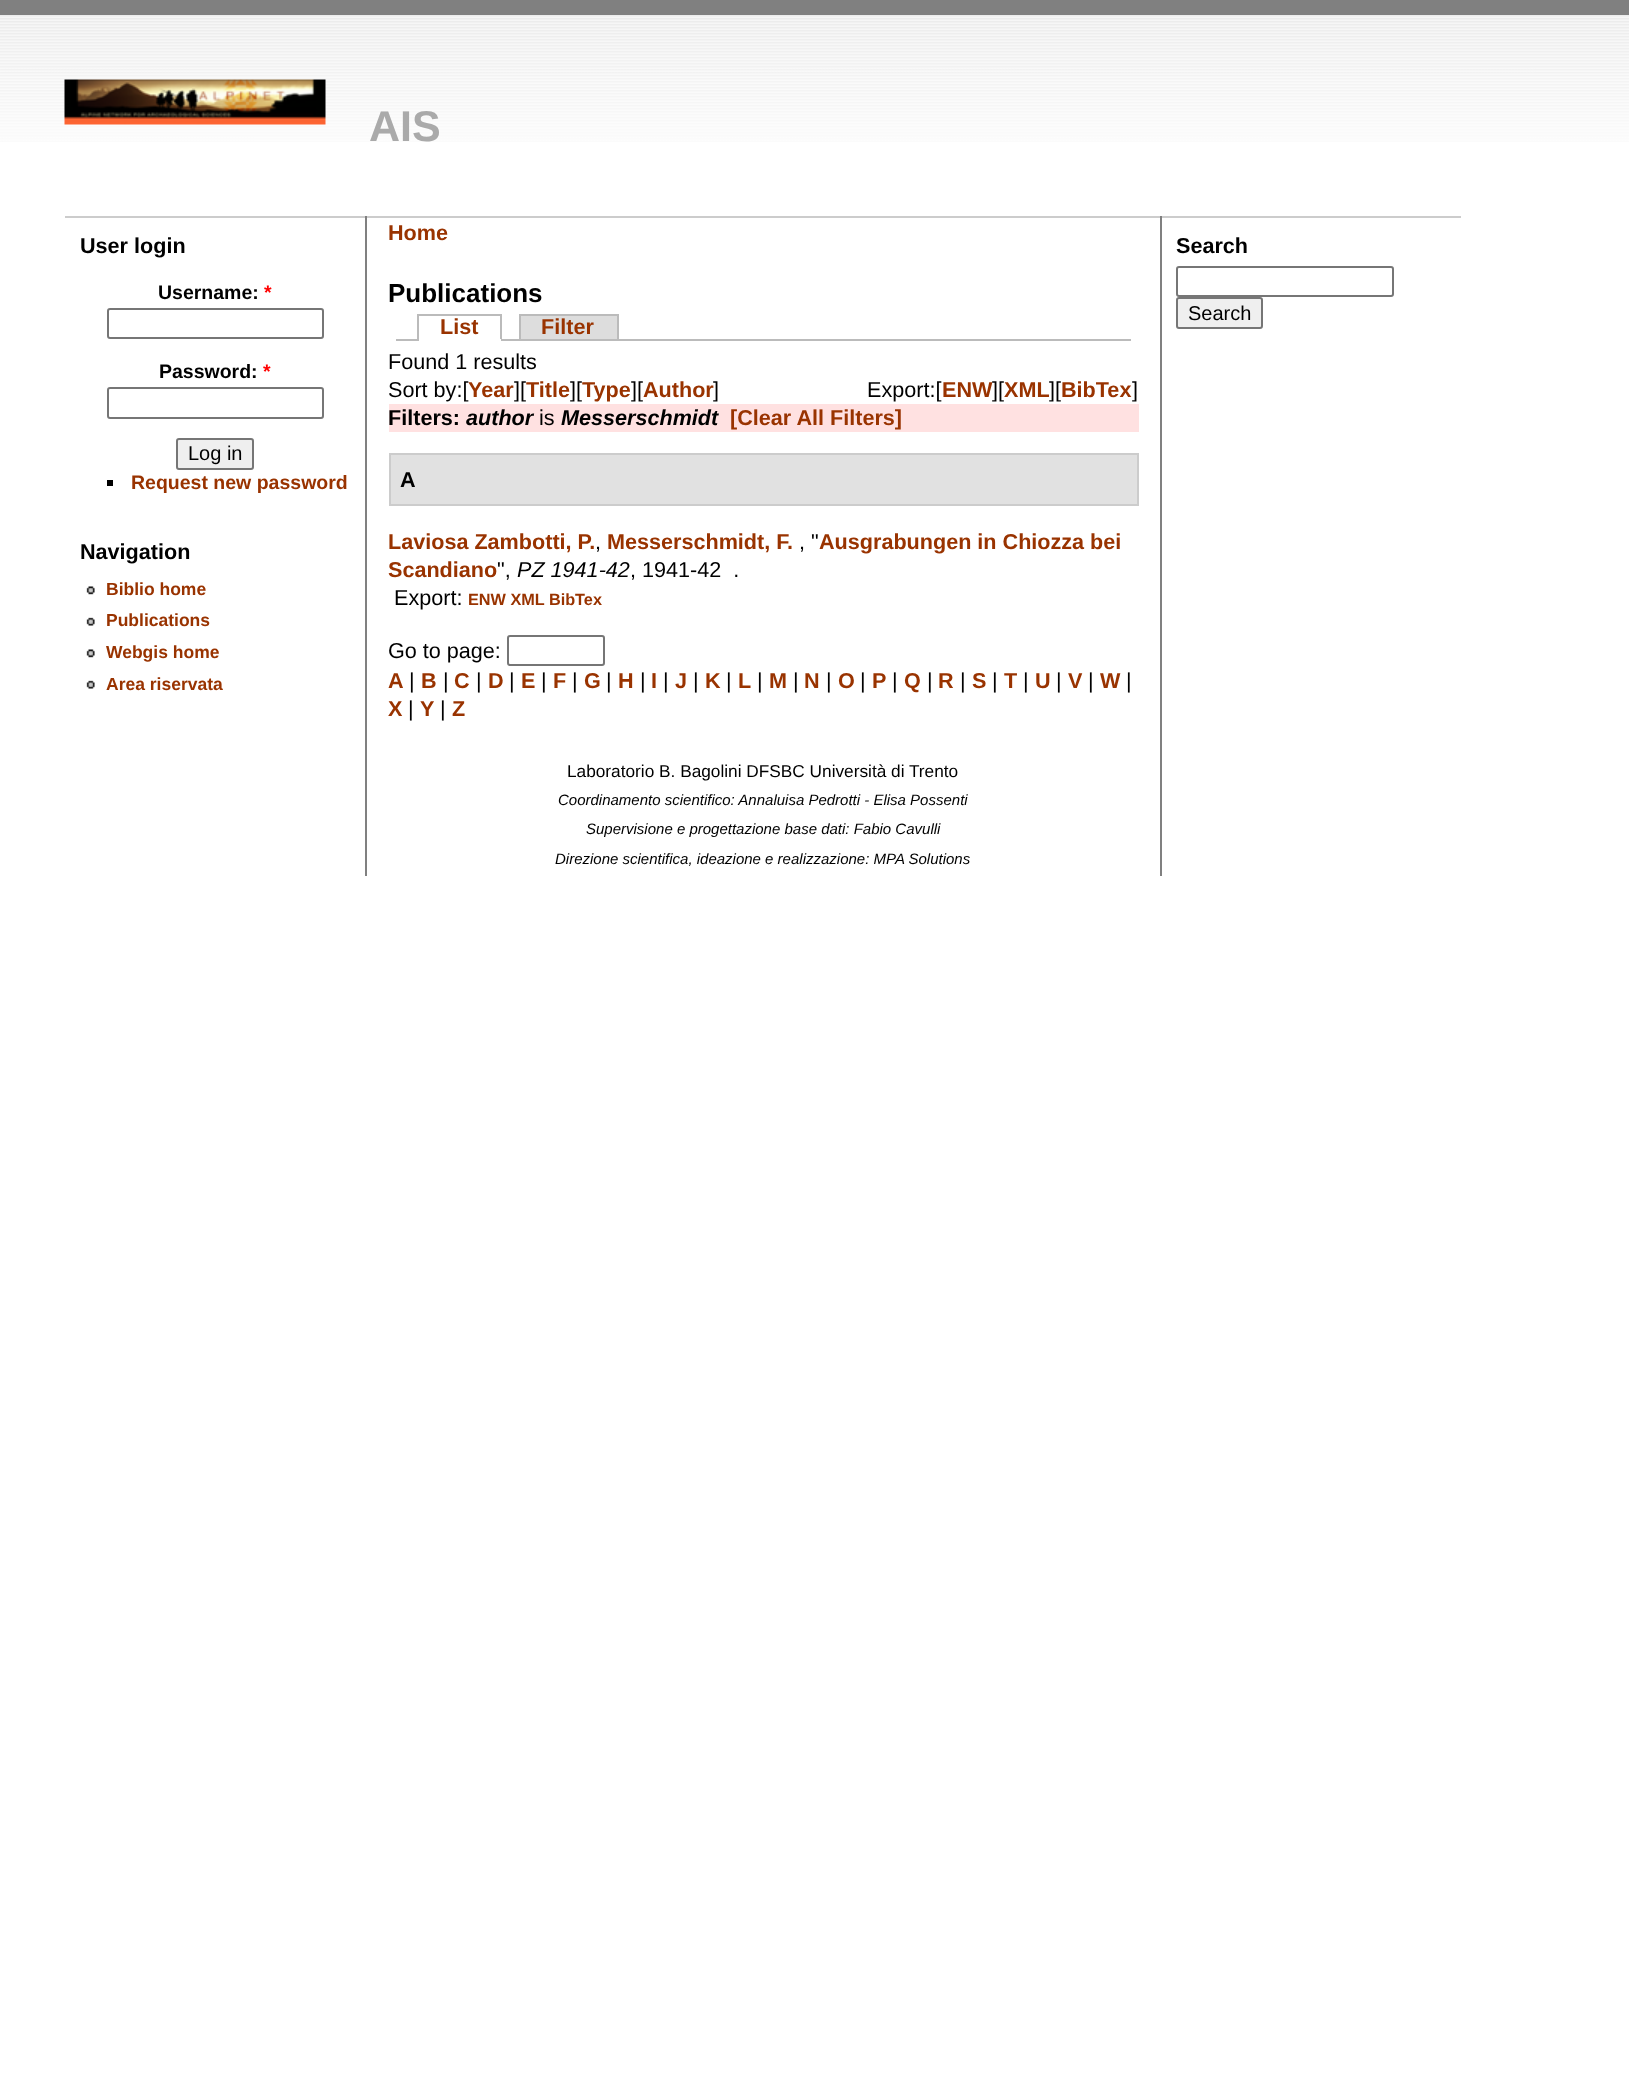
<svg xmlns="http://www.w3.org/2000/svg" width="1629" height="2097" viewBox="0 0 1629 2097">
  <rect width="100%" height="100%" fill="#fff"/>
  <image x="0" y="15" width="1629" height="127" href="img/1.png"/>
  <path d="M0 0h1629v15H0z" fill="#808080"/>
  <image x="64" y="79" width="262" height="46" href="img/2.png"/>
  <path d="M65 216h1396v2H65z" fill="#ccc"/>
  <path d="M365 216h2v660H365z" fill="#808080"/>
  <rect x="108" y="309" width="215" height="29" rx="2" fill="none" stroke="#767676" stroke-width="2"/>
  <rect x="108" y="388" width="215" height="30" rx="2" fill="none" stroke="#767676" stroke-width="2"/>
  <rect x="177" y="439" width="76" height="30" rx="2" fill="#efefef" stroke="#767676" stroke-width="2"/>
  <path d="M107 480h6v6H107z" fill="#000"/>
  <image x="86" y="586" width="9" height="9" href="img/3.png"/>
  <image x="86" y="617" width="9" height="9" href="img/4.png"/>
  <image x="86" y="649" width="9" height="9" href="img/3.png"/>
  <image x="86" y="680" width="9" height="9" href="img/4.png"/>
  <path d="M396 339h735v2H396z" fill="#bbb"/>
  <path d="M417 314h84v2H417z" fill="#bbb"/>
  <path d="M500 314h2v27H500z" fill="#bbb"/>
  <path d="M417 339h84v2H417z" fill="#fff"/>
  <path d="M417 314h2v27H417z" fill="#bbb"/>
  <path d="M521 316h96v23H521z" fill="#ddd"/>
  <path d="M519 314h99v2H519z" fill="#bbb"/>
  <path d="M617 314h2v25H617z" fill="#bbb"/>
  <path d="M519 314h2v25H519z" fill="#bbb"/>
  <path d="M389 404h750v28H389z" fill="#ffe1e1"/>
  <path d="M390 454h748v51H390z" fill="#e1e1e1" stroke="#ccc" stroke-width="2"/>
  <rect x="508" y="636" width="96" height="29" rx="2" fill="none" stroke="#767676" stroke-width="2"/>
  <path d="M1160 216h2v660H1160z" fill="#808080"/>
  <rect x="1177" y="267" width="216" height="29" rx="2" fill="none" stroke="#767676" stroke-width="2"/>
  <rect x="1177" y="298" width="85" height="30" rx="2" fill="#efefef" stroke="#767676" stroke-width="2"/>
  <text x="369" y="141" font-family="Liberation Sans" font-size="43" font-weight="bold" fill="#aaa">AIS</text>
  <text x="80" y="253" font-family="Liberation Sans" font-size="21.6" font-weight="bold" fill="#000">User login</text>
  <text x="158" y="299" font-family="Liberation Sans" font-size="19.5" font-weight="bold" fill="#000">Username:</text>
  <text x="264" y="299" font-family="Liberation Sans" font-size="19.5" font-weight="bold" fill="#f00">*</text>
  <text x="159" y="378" font-family="Liberation Sans" font-size="19.5" font-weight="bold" fill="#000">Password:</text>
  <text x="263" y="378" font-family="Liberation Sans" font-size="19.5" font-weight="bold" fill="#f00">*</text>
  <text x="188" y="460" font-family="Liberation Sans" font-size="20" fill="#000">Log in</text>
  <text x="131" y="489" font-family="Liberation Sans" font-size="19.5" font-weight="bold" fill="#930">Request new password</text>
  <text x="80" y="559" font-family="Liberation Sans" font-size="21.6" font-weight="bold" fill="#000">Navigation</text>
  <g font-family="Liberation Sans" font-size="17.5" font-weight="bold" fill="#930">
    <text x="106" y="595">Biblio home</text>
    <text x="106" y="626">Publications</text>
    <text x="106" y="658">Webgis home</text>
    <text x="106" y="690">Area riservata</text>
  </g>
  <text x="388" y="240" font-family="Liberation Sans" font-size="21.6" font-weight="bold" fill="#930">Home</text>
  <text x="388" y="302" font-family="Liberation Sans" font-size="26" font-weight="bold" fill="#000">Publications</text>
  <g font-family="Liberation Sans" font-size="21.6" font-weight="bold" fill="#930">
    <text x="440" y="334">List</text>
    <text x="541" y="334">Filter</text>
  </g>
  <g font-family="Liberation Sans" font-size="21.6" fill="#000">
    <text x="388" y="369">Found 1 results</text>
    <text x="388" y="397">Sort by:[</text>
  </g>
  <text x="468" y="397" font-family="Liberation Sans" font-size="21.6" font-weight="bold" fill="#930">Year</text>
  <text x="514" y="397" font-family="Liberation Sans" font-size="21.6" fill="#000">][</text>
  <text x="526" y="397" font-family="Liberation Sans" font-size="21.6" font-weight="bold" fill="#930">Title</text>
  <text x="570" y="397" font-family="Liberation Sans" font-size="21.6" fill="#000">][</text>
  <text x="582" y="397" font-family="Liberation Sans" font-size="21.6" font-weight="bold" fill="#930">Type</text>
  <text x="631" y="397" font-family="Liberation Sans" font-size="21.6" fill="#000">][</text>
  <text x="643" y="397" font-family="Liberation Sans" font-size="21.6" font-weight="bold" fill="#930">Author</text>
  <g font-family="Liberation Sans" font-size="21.6" fill="#000">
    <text x="713" y="397">]</text>
    <text x="867" y="397">Export:[</text>
  </g>
  <text x="942" y="397" font-family="Liberation Sans" font-size="21.6" font-weight="bold" fill="#930">ENW</text>
  <text x="992" y="397" font-family="Liberation Sans" font-size="21.6" fill="#000">][</text>
  <text x="1004" y="397" font-family="Liberation Sans" font-size="21.6" font-weight="bold" fill="#930">XML</text>
  <text x="1049" y="397" font-family="Liberation Sans" font-size="21.6" fill="#000">][</text>
  <text x="1061" y="397" font-family="Liberation Sans" font-size="21.6" font-weight="bold" fill="#930">BibTex</text>
  <text x="1132" y="397" font-family="Liberation Sans" font-size="21.6" fill="#000">]</text>
  <text x="388" y="425" font-family="Liberation Sans" font-size="21.6" font-weight="bold" fill="#000">Filters:</text>
  <text x="466" y="425" font-family="Liberation Sans" font-size="21.6" font-weight="bold" font-style="italic" fill="#000">author</text>
  <text x="539" y="425" font-family="Liberation Sans" font-size="21.6" fill="#000">is</text>
  <text x="561" y="425" font-family="Liberation Sans" font-size="21.6" font-weight="bold" font-style="italic" fill="#000">Messerschmidt</text>
  <text x="730" y="425" font-family="Liberation Sans" font-size="21.6" font-weight="bold" fill="#930">[Clear All Filters]</text>
  <text x="400" y="487" font-family="Liberation Sans" font-size="21.6" font-weight="bold" fill="#000">A</text>
  <text x="388" y="549" font-family="Liberation Sans" font-size="21.6" font-weight="bold" fill="#930">Laviosa Zambotti, P.</text>
  <text x="595" y="549" font-family="Liberation Sans" font-size="21.6" fill="#000">,</text>
  <text x="607" y="549" font-family="Liberation Sans" font-size="21.6" font-weight="bold" fill="#930">Messerschmidt, F.</text>
  <text x="799" y="549" font-family="Liberation Sans" font-size="21.6" fill="#000">, "</text>
  <g font-family="Liberation Sans" font-size="21.6" font-weight="bold" fill="#930">
    <text x="819" y="549">Ausgrabungen in Chiozza bei</text>
    <text x="388" y="577">Scandiano</text>
  </g>
  <text x="497" y="577" font-family="Liberation Sans" font-size="21.6" fill="#000">",</text>
  <text x="517" y="577" font-family="Liberation Sans" font-size="21.6" font-style="italic" fill="#000">PZ 1941-42</text>
  <g font-family="Liberation Sans" font-size="21.6" fill="#000">
    <text x="630" y="577" xml:space="preserve">, 1941-42  .</text>
    <text x="394" y="605">Export:</text>
  </g>
  <text x="468" y="605" font-family="Liberation Sans" font-size="16.25" font-weight="bold" fill="#930">ENW XML BibTex</text>
  <text x="388" y="658" font-family="Liberation Sans" font-size="21.6" fill="#000">Go to page:</text>
  <text x="388" y="688" font-family="Liberation Sans" font-size="21.6" font-weight="bold" fill="#930">A</text>
  <text x="409" y="688" font-family="Liberation Sans" font-size="21.6" fill="#000">|</text>
  <text x="421" y="688" font-family="Liberation Sans" font-size="21.6" font-weight="bold" fill="#930">B</text>
  <text x="443" y="688" font-family="Liberation Sans" font-size="21.6" fill="#000">|</text>
  <text x="454" y="688" font-family="Liberation Sans" font-size="21.6" font-weight="bold" fill="#930">C</text>
  <text x="476" y="688" font-family="Liberation Sans" font-size="21.6" fill="#000">|</text>
  <text x="488" y="688" font-family="Liberation Sans" font-size="21.6" font-weight="bold" fill="#930">D</text>
  <text x="509" y="688" font-family="Liberation Sans" font-size="21.6" fill="#000">|</text>
  <text x="521" y="688" font-family="Liberation Sans" font-size="21.6" font-weight="bold" fill="#930">E</text>
  <text x="541" y="688" font-family="Liberation Sans" font-size="21.6" fill="#000">|</text>
  <text x="553" y="688" font-family="Liberation Sans" font-size="21.6" font-weight="bold" fill="#930">F</text>
  <text x="572" y="688" font-family="Liberation Sans" font-size="21.6" fill="#000">|</text>
  <text x="584" y="688" font-family="Liberation Sans" font-size="21.6" font-weight="bold" fill="#930">G</text>
  <text x="606" y="688" font-family="Liberation Sans" font-size="21.6" fill="#000">|</text>
  <text x="618" y="688" font-family="Liberation Sans" font-size="21.6" font-weight="bold" fill="#930">H</text>
  <text x="640" y="688" font-family="Liberation Sans" font-size="21.6" fill="#000">|</text>
  <text x="651" y="688" font-family="Liberation Sans" font-size="21.6" font-weight="bold" fill="#930">I</text>
  <text x="663" y="688" font-family="Liberation Sans" font-size="21.6" fill="#000">|</text>
  <text x="675" y="688" font-family="Liberation Sans" font-size="21.6" font-weight="bold" fill="#930">J</text>
  <text x="693" y="688" font-family="Liberation Sans" font-size="21.6" fill="#000">|</text>
  <text x="705" y="688" font-family="Liberation Sans" font-size="21.6" font-weight="bold" fill="#930">K</text>
  <text x="726" y="688" font-family="Liberation Sans" font-size="21.6" fill="#000">|</text>
  <text x="738" y="688" font-family="Liberation Sans" font-size="21.6" font-weight="bold" fill="#930">L</text>
  <text x="757" y="688" font-family="Liberation Sans" font-size="21.6" fill="#000">|</text>
  <text x="769" y="688" font-family="Liberation Sans" font-size="21.6" font-weight="bold" fill="#930">M</text>
  <text x="793" y="688" font-family="Liberation Sans" font-size="21.6" fill="#000">|</text>
  <text x="804" y="688" font-family="Liberation Sans" font-size="21.6" font-weight="bold" fill="#930">N</text>
  <text x="826" y="688" font-family="Liberation Sans" font-size="21.6" fill="#000">|</text>
  <text x="838" y="688" font-family="Liberation Sans" font-size="21.6" font-weight="bold" fill="#930">O</text>
  <text x="860" y="688" font-family="Liberation Sans" font-size="21.6" fill="#000">|</text>
  <text x="872" y="688" font-family="Liberation Sans" font-size="21.6" font-weight="bold" fill="#930">P</text>
  <text x="892" y="688" font-family="Liberation Sans" font-size="21.6" fill="#000">|</text>
  <text x="904" y="688" font-family="Liberation Sans" font-size="21.6" font-weight="bold" fill="#930">Q</text>
  <text x="927" y="688" font-family="Liberation Sans" font-size="21.6" fill="#000">|</text>
  <text x="938" y="688" font-family="Liberation Sans" font-size="21.6" font-weight="bold" fill="#930">R</text>
  <text x="960" y="688" font-family="Liberation Sans" font-size="21.6" fill="#000">|</text>
  <text x="972" y="688" font-family="Liberation Sans" font-size="21.6" font-weight="bold" fill="#930">S</text>
  <text x="992" y="688" font-family="Liberation Sans" font-size="21.6" fill="#000">|</text>
  <text x="1004" y="688" font-family="Liberation Sans" font-size="21.6" font-weight="bold" fill="#930">T</text>
  <text x="1023" y="688" font-family="Liberation Sans" font-size="21.6" fill="#000">|</text>
  <text x="1035" y="688" font-family="Liberation Sans" font-size="21.6" font-weight="bold" fill="#930">U</text>
  <text x="1056" y="688" font-family="Liberation Sans" font-size="21.6" fill="#000">|</text>
  <text x="1068" y="688" font-family="Liberation Sans" font-size="21.6" font-weight="bold" fill="#930">V</text>
  <text x="1088" y="688" font-family="Liberation Sans" font-size="21.6" fill="#000">|</text>
  <text x="1100" y="688" font-family="Liberation Sans" font-size="21.6" font-weight="bold" fill="#930">W</text>
  <text x="1126" y="688" font-family="Liberation Sans" font-size="21.6" fill="#000">|</text>
  <text x="388" y="716" font-family="Liberation Sans" font-size="21.6" font-weight="bold" fill="#930">X</text>
  <text x="408" y="716" font-family="Liberation Sans" font-size="21.6" fill="#000">|</text>
  <text x="420" y="716" font-family="Liberation Sans" font-size="21.6" font-weight="bold" fill="#930">Y</text>
  <text x="440" y="716" font-family="Liberation Sans" font-size="21.6" fill="#000">|</text>
  <text x="452" y="716" font-family="Liberation Sans" font-size="21.6" font-weight="bold" fill="#930">Z</text>
  <text x="567" y="777" font-family="Liberation Sans" font-size="17.25" fill="#000">Laboratorio B. Bagolini DFSBC Università di Trento</text>
  <g font-family="Liberation Sans" font-size="15" font-style="italic" fill="#000">
    <text x="558" y="805">Coordinamento scientifico: Annaluisa Pedrotti - Elisa Possenti</text>
    <text x="586" y="834">Supervisione e progettazione base dati: Fabio Cavulli</text>
    <text x="555" y="864">Direzione scientifica, ideazione e realizzazione: MPA Solutions</text>
  </g>
  <text x="1176" y="253" font-family="Liberation Sans" font-size="21.6" font-weight="bold" fill="#000">Search</text>
  <text x="1188" y="320" font-family="Liberation Sans" font-size="20" fill="#000">Search</text>
</svg>
